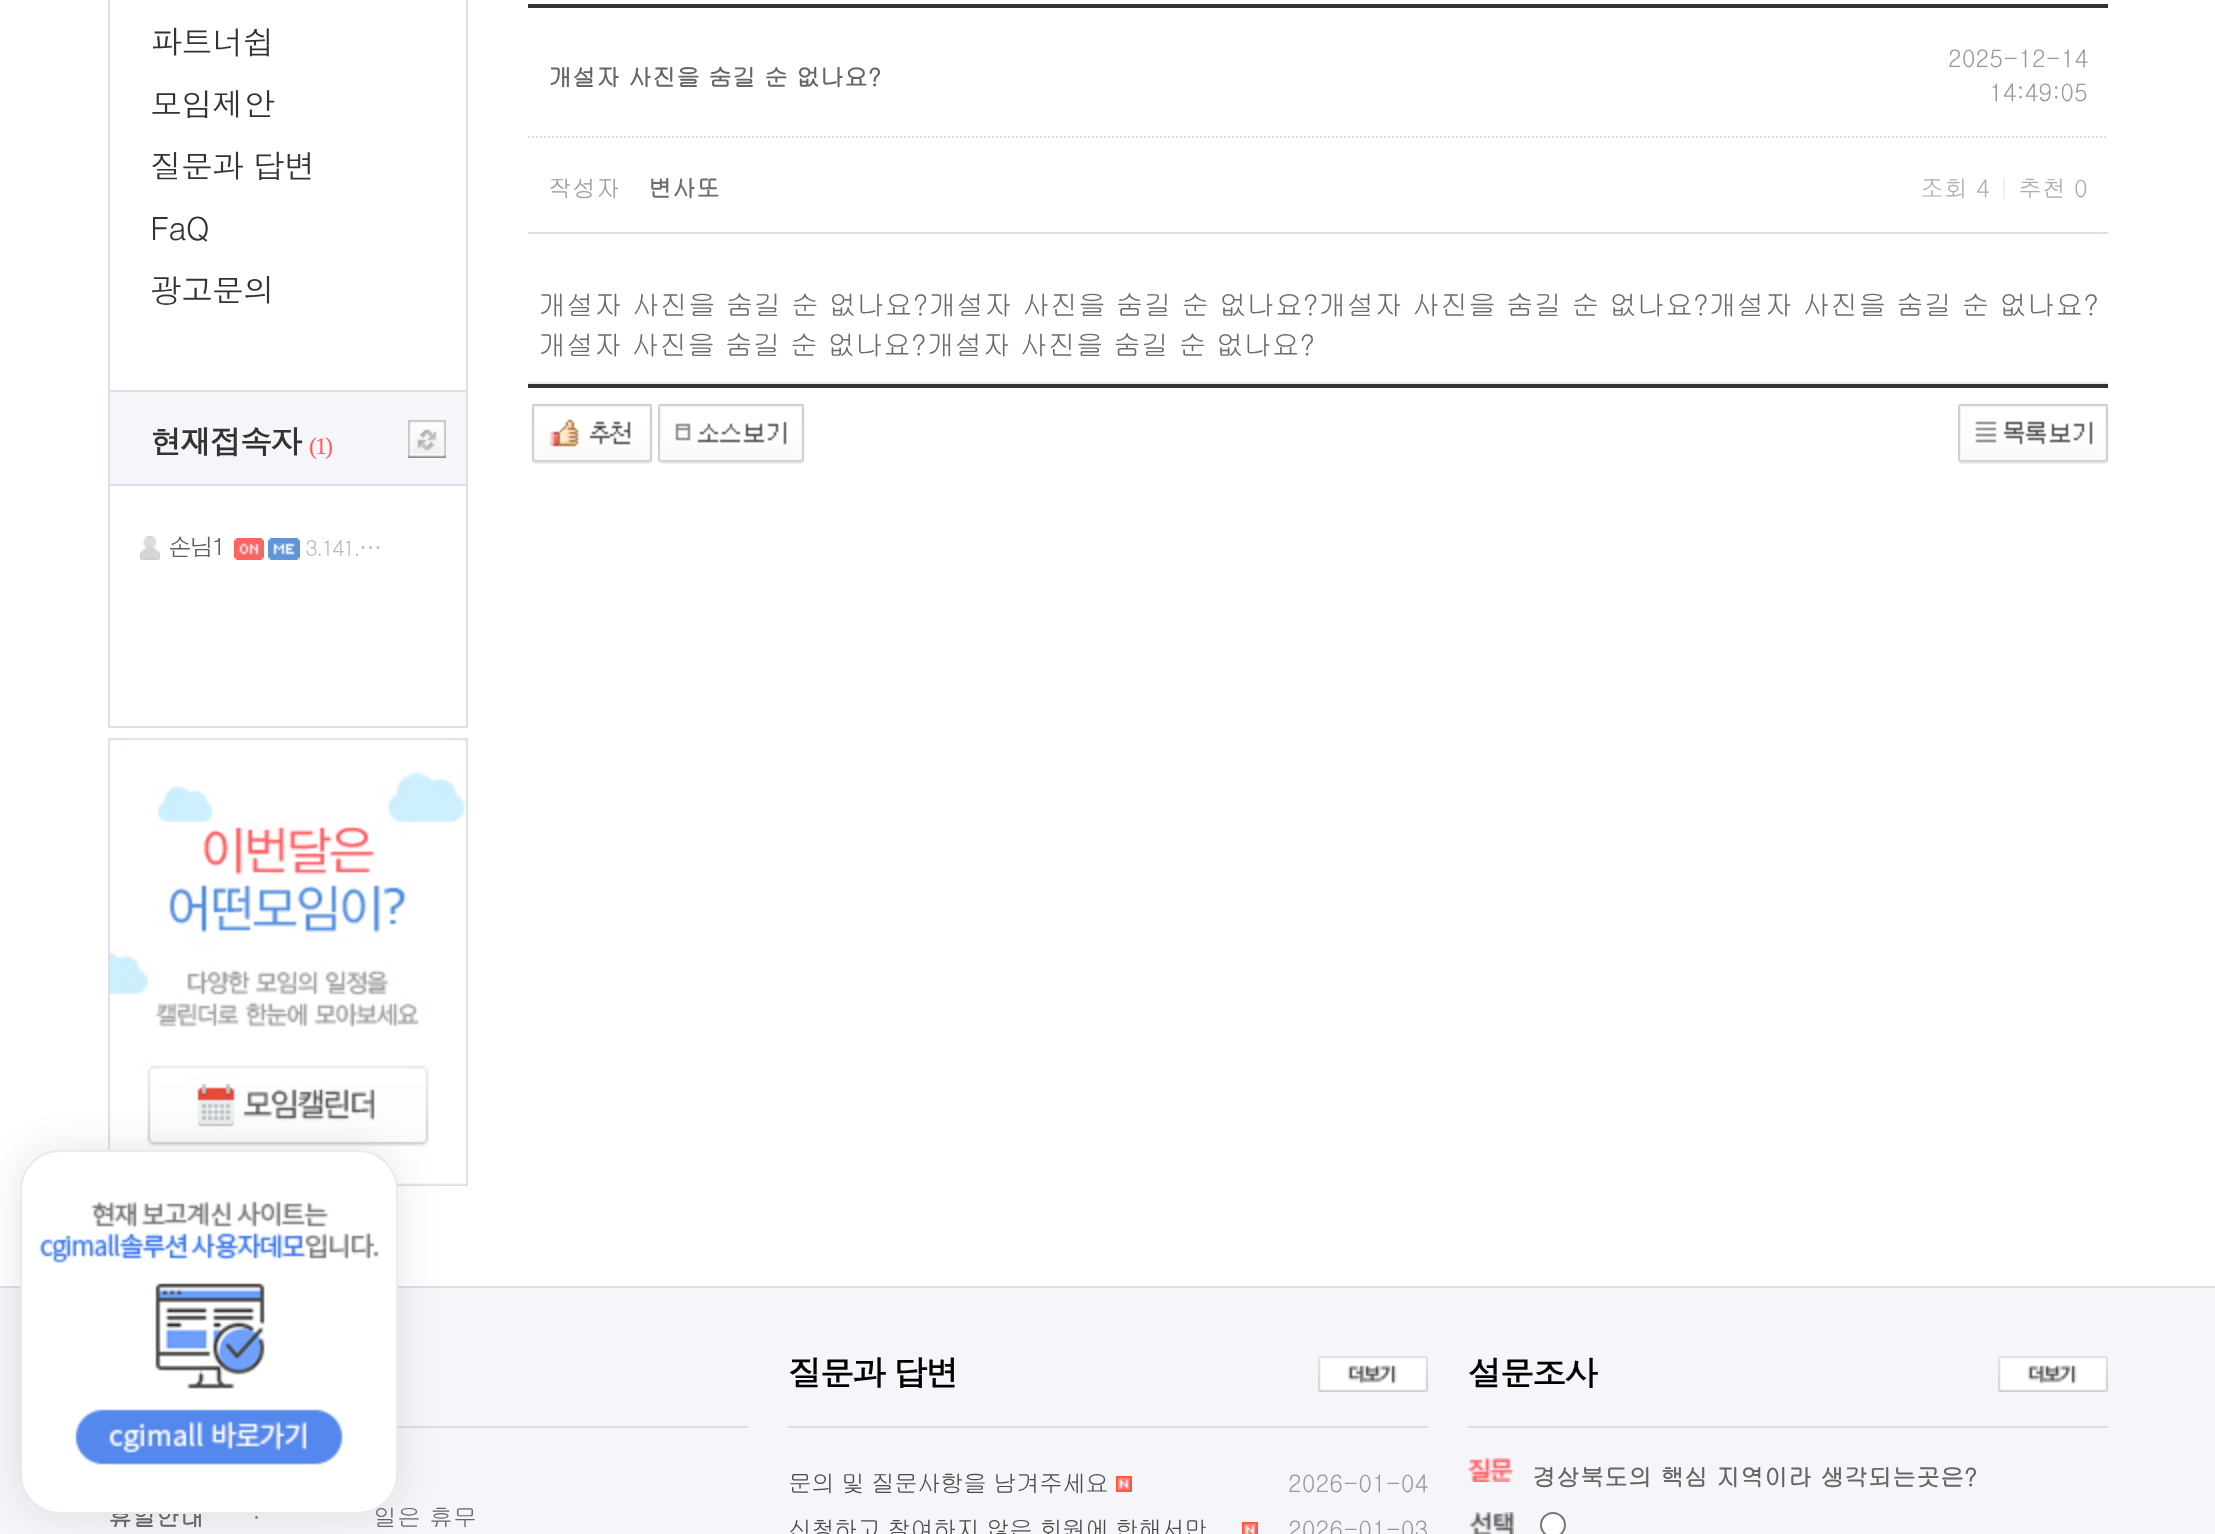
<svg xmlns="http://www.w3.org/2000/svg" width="2215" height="1534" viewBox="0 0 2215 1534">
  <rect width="100%" height="100%" fill="#fff"/>
  <path d="M466 0h2v390H466z" fill="#dcdfe5"/>
  <path d="M108 0h2v390H108z" fill="#dcdfe5"/>
  <path d="M109 391h358v336H109z" fill="none" stroke="#dcdfe5" stroke-width="2"/>
  <path d="M110 392h356v92H110z" fill="#f5f6f9"/>
  <path d="M110 484h356v2H110z" fill="#dcdfe5"/>
  <image x="408" y="420" width="38" height="38" href="img/1.png"/>
  <image x="140" y="536" width="240" height="24" href="img/2.png"/>
  <image x="108" y="738" width="360" height="448" href="img/3.png"/>
  <path d="M528 4h1580v4H528z" fill="#333"/>
  <path d="M528 232h1580v2H528z" fill="#dcdfe6"/>
  <path d="M528 137H2108" fill="none" stroke="#dcdfe6" stroke-width="2" stroke-dasharray="2 2"/>
  <path d="M528 382h1580v2H528z" fill="#eaeaea"/>
  <path d="M528 384h1580v4H528z" fill="#333"/>
  <image x="532" y="404" width="120" height="60" href="img/4.png"/>
  <image x="658" y="404" width="146" height="60" href="img/5.png"/>
  <image x="1958" y="404" width="150" height="60" href="img/6.png"/>
  <path d="M0 1286h2215v2H0z" fill="#dcdfe5"/>
  <path d="M0 1288h2215v246H0z" fill="#f5f6fa"/>
  <path d="M788 1426h640v2H788z" fill="#dcdfe5"/>
  <image x="1318" y="1356" width="110" height="36" href="img/7.png"/>
  <image x="1116" y="1476" width="16" height="16" href="img/8.png"/>
  <image x="1242" y="1522" width="16" height="12" href="img/9.png"/>
  <path d="M1468 1426h640v2H1468z" fill="#dcdfe5"/>
  <image x="1998" y="1356" width="110" height="36" href="img/7.png"/>
  <image x="1468" y="1458" width="46" height="24" href="img/10.png"/>
  <image x="1469" y="1512" width="45" height="22" href="img/11.png"/>
  <circle cx="1553" cy="1525" r="12" fill="#fff" stroke="#767676" stroke-width="2"/>
  <path d="M398 1426h350v2H398z" fill="#dcdfe5"/>
  <rect x="20" y="1150" width="378" height="364" rx="40" fill="#0000001a" filter="blur(20px)"/>
  <g font-family="Dotum" font-size="32" letter-spacing="-1" fill="#333">
    <text x="150" y="54">파트너쉽</text>
    <text x="150" y="116">모임제안</text>
    <text x="150" y="178">질문과 답변</text>
    <text x="150" y="240">FaQ</text>
    <text x="150" y="302">광고문의</text>
  </g>
  <text x="150" y="454" font-family="Dotum" font-size="32" font-weight="bold" letter-spacing="-2" fill="#333">현재접속자</text>
  <text x="309" y="454" font-family="Liberation Serif" font-size="24" letter-spacing="-2" fill="#ff5a5f">(1)</text>
  <text x="548" y="86" font-family="Gulim" font-size="24" font-weight="bold" fill="#666">개설자 사진을 숨길 순 없나요?</text>
  <g font-family="Gulim" font-size="24" fill="#999">
    <text x="1948" y="67">2025-12-14</text>
    <text x="1989" y="101">14:49:05</text>
    <text x="548" y="197">작성자</text>
  </g>
  <text x="648" y="197" font-family="Gulim" font-size="24" font-weight="bold" fill="#6c6c6c">변사또</text>
  <text x="1920" y="197" font-family="Gulim" font-size="24" fill="#acacac">조회 4</text>
  <text x="1998" y="197" font-family="Gulim" font-size="24" fill="#ececec">|</text>
  <text x="2018" y="197" font-family="Gulim" font-size="24" fill="#acacac">추천 0</text>
  <text x="538" y="315" font-family="Gulim" font-size="28" letter-spacing="0.1" fill="#6c6c6c">개설자 사진을 숨길 순 없나요?개설자 사진을 숨길 순 없나요?개설자 사진을 숨길 순 없나요?개설자 사진을 숨길 순 없나요?</text>
  <text x="538" y="355" font-family="Gulim" font-size="28" fill="#6c6c6c">개설자 사진을 숨길 순 없나요?개설자 사진을 숨길 순 없나요?</text>
  <text x="788" y="1386" font-family="Dotum" font-size="34" font-weight="bold" letter-spacing="-2" fill="#000">질문과 답변</text>
  <text x="788" y="1492" font-family="Gulim" font-size="24" letter-spacing="-1" fill="#4a4949">문의 및 질문사항을 남겨주세요</text>
  <text x="1288" y="1492" font-family="Gulim" font-size="24" fill="#999">2026-01-04</text>
  <text x="788" y="1538" font-family="Gulim" font-size="24" letter-spacing="-1" fill="#4a4949">신청하고 참여하지 않은 회원에 한해서만</text>
  <text x="1288" y="1538" font-family="Gulim" font-size="24" fill="#999">2026-01-03</text>
  <text x="1468" y="1386" font-family="Dotum" font-size="34" font-weight="bold" letter-spacing="-2" fill="#000">설문조사</text>
  <g font-family="Gulim" font-size="24" font-weight="bold" fill="#666">
    <text x="1532" y="1486">경상북도의 핵심 지역이라 생각되는곳은?</text>
    <text x="108" y="1526">휴일안내</text>
  </g>
  <g font-family="Gulim" font-size="24" fill="#666">
    <text x="252" y="1526">·</text>
    <text x="373" y="1526">일은 휴무</text>
  </g>
  <rect x="21" y="1151" width="376" height="362" rx="39" fill="#fff" stroke="#eaeaea" stroke-width="2"/>
  <image x="39" y="1201" width="340" height="264" href="img/12.png"/>
</svg>
